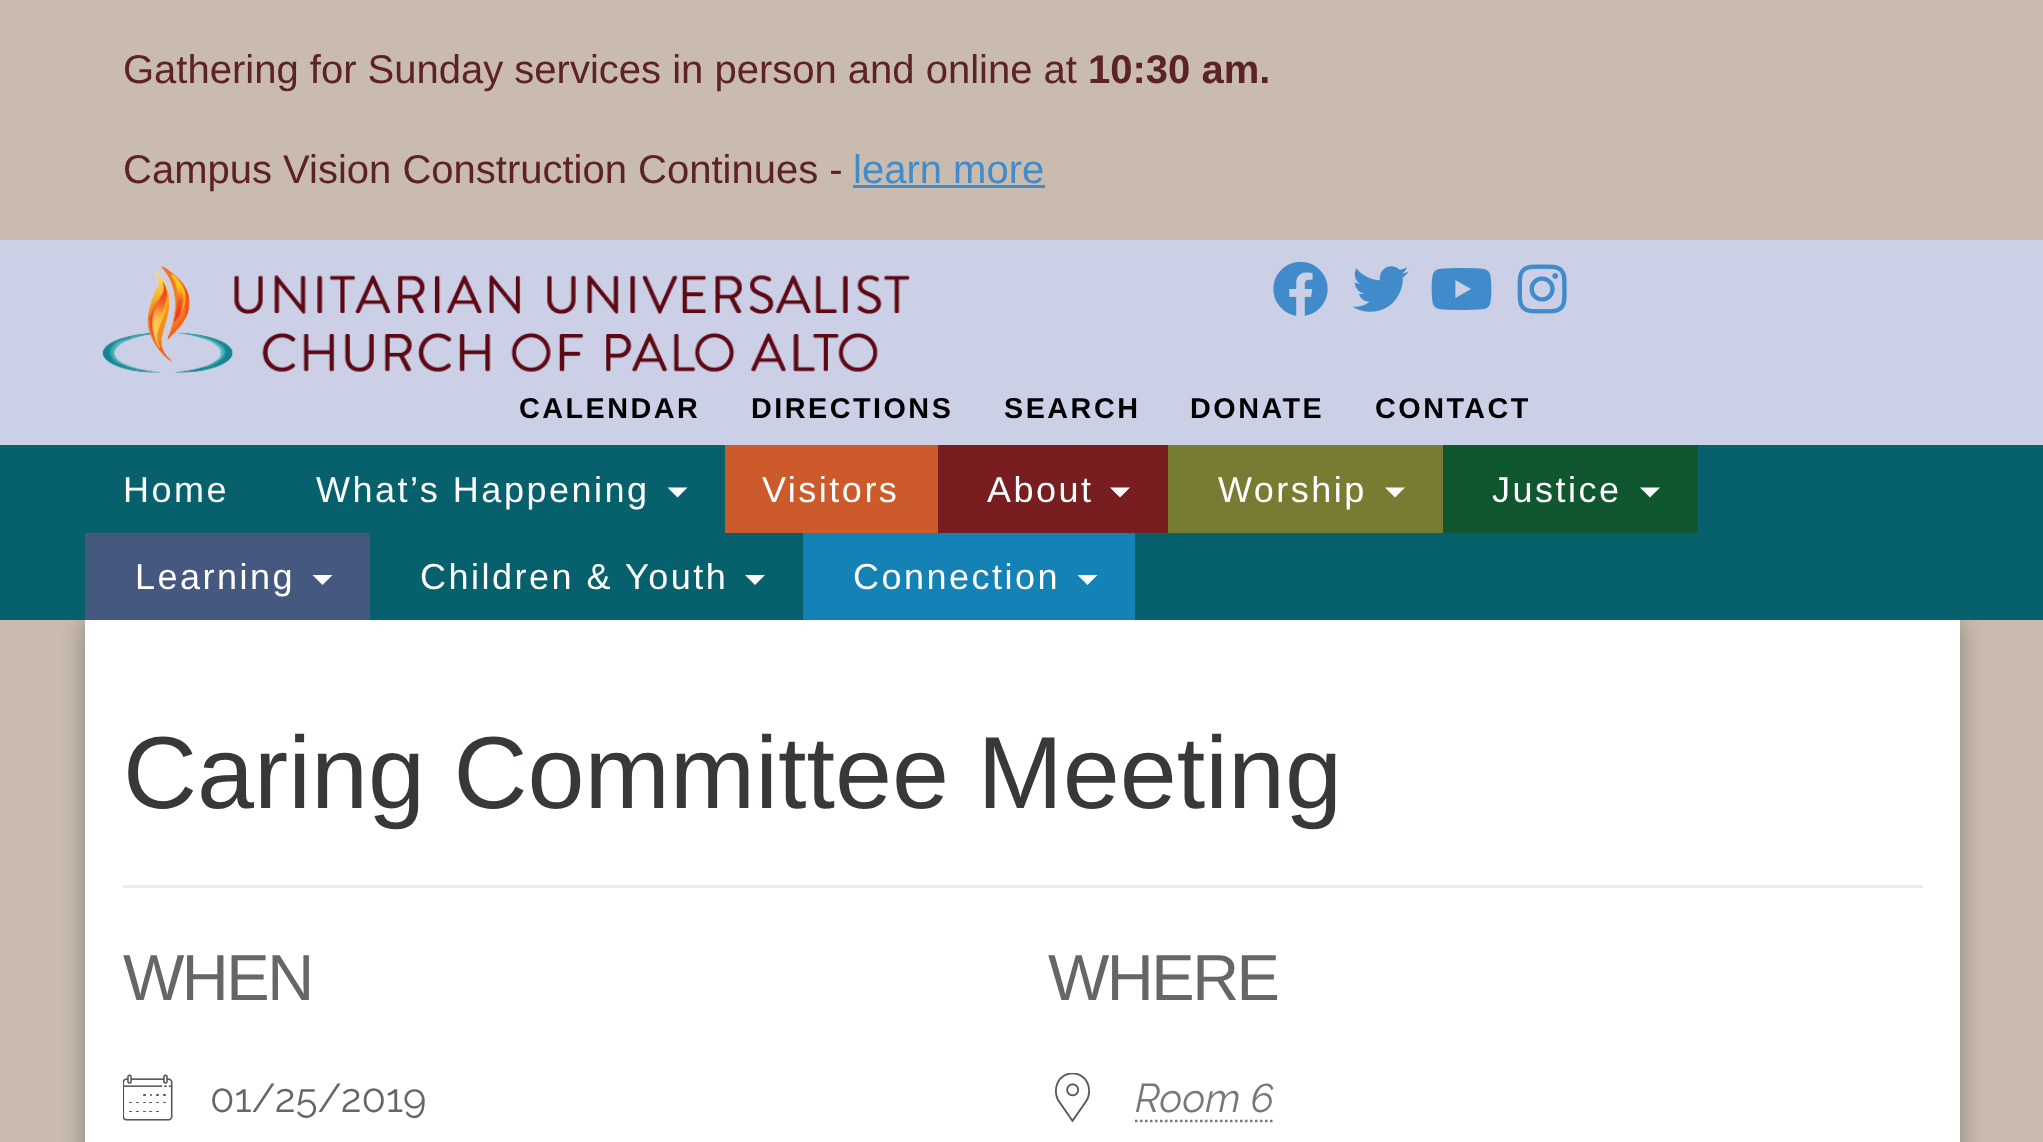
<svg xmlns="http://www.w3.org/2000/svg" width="2043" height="1142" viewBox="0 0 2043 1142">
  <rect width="100%" height="100%" fill="#c9bcaf"/>
  <path d="M853 185h192v3H853z" fill="#428bca"/>
  <path d="M0 240h2043v205H0z" fill="#cbd0e7"/>
  <image x="102" y="265" width="808" height="108" href="img/1.png"/>
  <image x="1273" y="261" width="55" height="55" href="img/2.png"/>
  <image x="1352" y="266" width="57" height="46" href="img/3.png"/>
  <image x="1431" y="268" width="61" height="42" href="img/4.png"/>
  <image x="1517" y="264" width="50" height="50" href="img/5.png"/>
  <path d="M85 620h1875v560H85z" fill="#0000004d" filter="blur(12.5px)"/>
  <path d="M0 445h2043v175H0z" fill="#07616c"/>
  <path d="M667.5 487.5H687.5L677.5 497.5Z" fill="#fff"/>
  <path d="M725 445h213v88H725z" fill="#cd5a2b"/>
  <path d="M938 445h230v88H938z" fill="#781e20"/>
  <path d="M1110 487.5H1130L1120 497.5Z" fill="#fff"/>
  <path d="M1168 445h275v88H1168z" fill="#787c32"/>
  <path d="M1385 487.5H1405L1395 497.5Z" fill="#fff"/>
  <path d="M1443 445h255v88H1443z" fill="#10562e"/>
  <path d="M1640 487.5H1660L1650 497.5Z" fill="#fff"/>
  <path d="M85 533h285v87H85z" fill="#45587f"/>
  <path d="M312.5 575H332.5L322.5 585Z" fill="#fff"/>
  <path d="M745 575H765L755 585Z" fill="#fff"/>
  <path d="M803 533h332v87H803z" fill="#1482b5"/>
  <path d="M1077.5 575H1097.5L1087.5 585Z" fill="#fff"/>
  <path d="M85 620h1875v522H85z" fill="#fff"/>
  <path d="M123 885h1800v3H123z" fill="#eee"/>
  <image x="123" y="1074" width="50" height="47" href="img/6.png"/>
  <image x="1055" y="1073" width="35" height="50" href="img/7.png"/>
  <path d="M1135 1121H1274" fill="none" stroke="#787878" stroke-width="2.5" stroke-dasharray="2.5 2.5"/>
  <text x="123" y="83" font-family="Liberation Sans" font-size="40" fill="#5d2222">Gathering for Sunday services in person and online at</text>
  <text x="1088" y="83" font-family="Liberation Sans" font-size="40" font-weight="bold" fill="#5d2222">10:30 am.</text>
  <text x="123" y="183" font-family="Liberation Sans" font-size="40" fill="#5d2222">Campus Vision Construction Continues -</text>
  <text x="853" y="183" font-family="Liberation Sans" font-size="40" fill="#428bca">learn more</text>
  <g font-family="Liberation Sans" font-size="28.75" font-weight="bold" letter-spacing="2.5" fill="#000">
    <text x="519" y="418">CALENDAR</text>
    <text x="751" y="418">DIRECTIONS</text>
    <text x="1004" y="418">SEARCH</text>
    <text x="1190" y="418">DONATE</text>
    <text x="1375" y="418">CONTACT</text>
  </g>
  <g font-family="Liberation Sans" font-size="36" letter-spacing="2.5" fill="#fff">
    <text x="123" y="502">Home</text>
    <text x="316" y="502">What’s Happening</text>
    <text x="762" y="502">Visitors</text>
    <text x="987" y="502">About</text>
    <text x="1218" y="502">Worship</text>
    <text x="1492" y="502">Justice</text>
    <text x="135" y="589">Learning</text>
    <text x="420" y="589">Children &amp; Youth</text>
    <text x="853" y="589">Connection</text>
  </g>
  <text x="123" y="808" font-family="Liberation Sans" font-size="102.5" fill="#373839">Caring Committee Meeting</text>
  <text x="123" y="1000" font-family="Liberation Sans" font-size="65" letter-spacing="-2.5" fill="#666">WHEN</text>
  <text x="210" y="1112" font-family="Raleway" font-size="40" fill="#666">01/25/2019</text>
  <text x="1048" y="1000" font-family="Liberation Sans" font-size="65" letter-spacing="-2.5" fill="#666">WHERE</text>
  <text x="1135" y="1112" font-family="Raleway" font-size="40" font-style="italic" fill="#787878">Room 6</text>
</svg>
